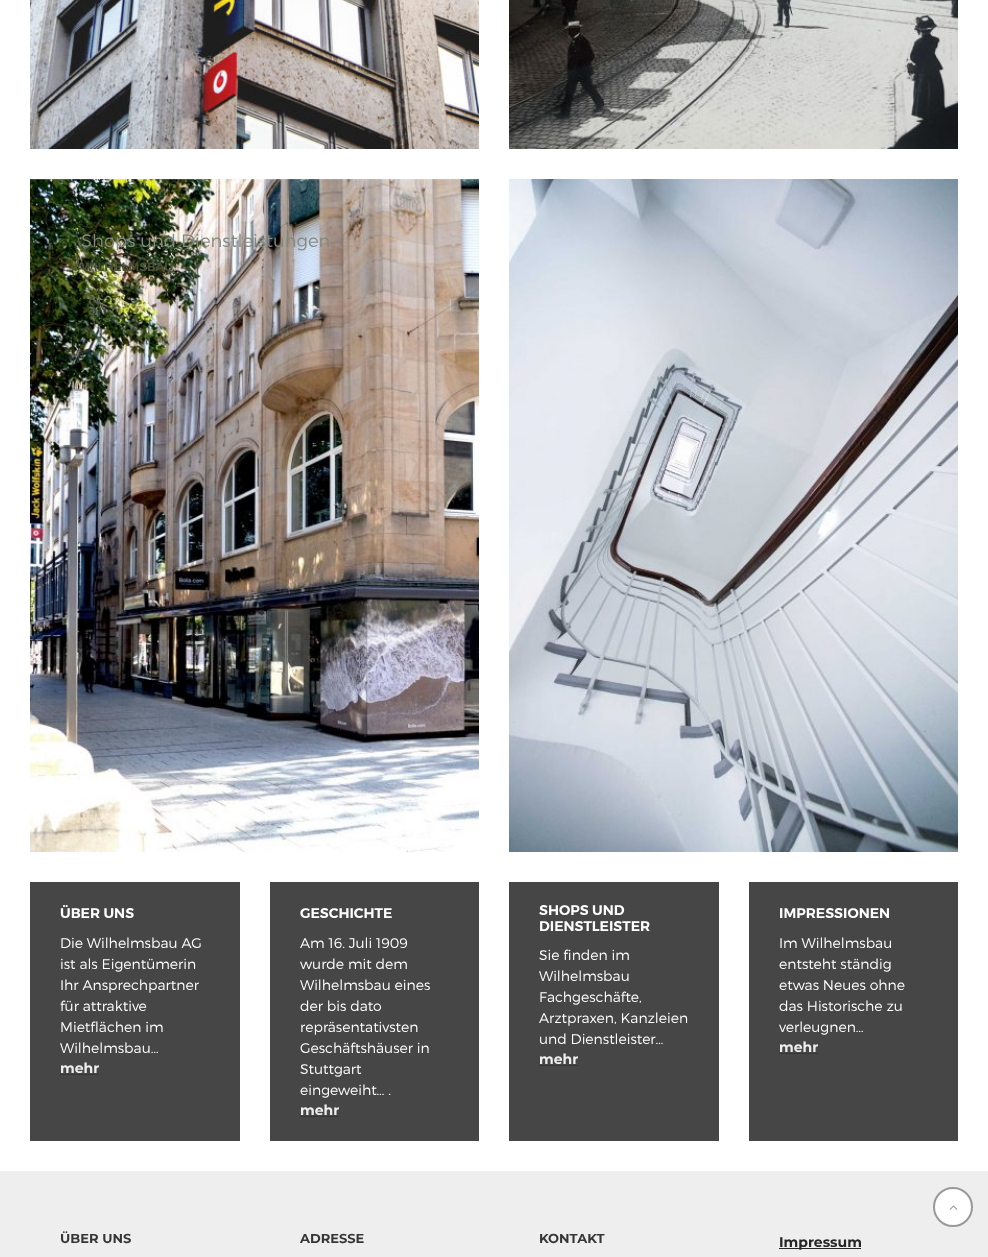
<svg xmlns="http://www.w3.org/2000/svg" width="988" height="1257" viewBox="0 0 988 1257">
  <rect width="100%" height="100%" fill="#fff"/>
  <image x="30" y="0" width="449" height="149" href="img/1.png"/>
  <image x="509" y="0" width="449" height="149" href="img/2.png"/>
  <image x="30" y="179" width="449" height="673" href="img/3.png"/>
  <image x="509" y="179" width="449" height="673" href="img/4.png"/>
  <path d="M30 882h210v259H30z" fill="#464646"/>
  <path d="M60 1074h39v1H60z" fill="#363636"/>
  <path d="M270 882h209v259H270z" fill="#464646"/>
  <path d="M300 1116h39v1H300z" fill="#363636"/>
  <path d="M509 882h210v259H509z" fill="#464646"/>
  <path d="M539 1065h39v1H539z" fill="#363636"/>
  <path d="M749 882h209v259H749z" fill="#464646"/>
  <path d="M779 1053h39v1H779z" fill="#363636"/>
  <path d="M0 1171h988v86H0z" fill="#eee"/>
  <circle cx="953" cy="1207" r="19" fill="#fff" stroke="#999" stroke-width="2"/>
  <image x="949" y="1205" width="9" height="5" href="img/5.png"/>
  <path d="M779 1248h82v1H779z" fill="#262626"/>
  <text x="81" y="247" font-family="Montserrat" font-size="18" font-weight="300" fill="#84897e">Shops und Dienstleistungen</text>
  <text x="81" y="271" font-family="Montserrat" font-size="12" font-weight="600" fill="#495035">WILHELMSBAU</text>
  <text x="60" y="918" font-family="Montserrat" font-size="14" font-weight="600" fill="#fff">ÜBER UNS</text>
  <g font-family="Montserrat" font-size="14" font-weight="300" fill="#fff">
    <text x="60" y="948">Die Wilhelmsbau AG</text>
    <text x="60" y="969">ist als Eigentümerin</text>
    <text x="60" y="990">Ihr Ansprechpartner</text>
    <text x="60" y="1011">für attraktive</text>
    <text x="60" y="1032">Mietflächen im</text>
    <text x="60" y="1053">Wilhelmsbau…</text>
  </g>
  <text x="60" y="1073" font-family="Montserrat" font-size="14" font-weight="bold" fill="#eee">mehr</text>
  <text x="300" y="918" font-family="Montserrat" font-size="14" font-weight="600" fill="#fff">GESCHICHTE</text>
  <g font-family="Montserrat" font-size="14" font-weight="300" fill="#fff">
    <text x="300" y="948">Am 16. Juli 1909</text>
    <text x="300" y="969">wurde mit dem</text>
    <text x="300" y="990">Wilhelmsbau eines</text>
    <text x="300" y="1011">der bis dato</text>
    <text x="300" y="1032">repräsentativsten</text>
    <text x="300" y="1053">Geschäftshäuser in</text>
    <text x="300" y="1074">Stuttgart</text>
    <text x="300" y="1095">eingeweiht… .</text>
  </g>
  <text x="300" y="1115" font-family="Montserrat" font-size="14" font-weight="bold" fill="#eee">mehr</text>
  <g font-family="Montserrat" font-size="14" font-weight="600" fill="#fff">
    <text x="539" y="915">SHOPS UND</text>
    <text x="539" y="931">DIENSTLEISTER</text>
  </g>
  <g font-family="Montserrat" font-size="14" font-weight="300" fill="#fff">
    <text x="539" y="960">Sie finden im</text>
    <text x="539" y="981">Wilhelmsbau</text>
    <text x="539" y="1002">Fachgeschäfte,</text>
    <text x="539" y="1023">Arztpraxen, Kanzleien</text>
    <text x="539" y="1044">und Dienstleister…</text>
  </g>
  <text x="539" y="1064" font-family="Montserrat" font-size="14" font-weight="bold" fill="#eee">mehr</text>
  <text x="779" y="918" font-family="Montserrat" font-size="14" font-weight="600" fill="#fff">IMPRESSIONEN</text>
  <g font-family="Montserrat" font-size="14" font-weight="300" fill="#fff">
    <text x="779" y="948">Im Wilhelmsbau</text>
    <text x="779" y="969">entsteht ständig</text>
    <text x="779" y="990">etwas Neues ohne</text>
    <text x="779" y="1011">das Historische zu</text>
    <text x="779" y="1032">verleugnen…</text>
  </g>
  <text x="779" y="1052" font-family="Montserrat" font-size="14" font-weight="bold" fill="#eee">mehr</text>
  <g font-family="Montserrat" font-size="13" font-weight="bold" fill="#363636">
    <text x="60" y="1243">ÜBER UNS</text>
    <text x="300" y="1243">ADRESSE</text>
    <text x="539" y="1243">KONTAKT</text>
  </g>
  <text x="779" y="1247" font-family="Montserrat" font-size="14" font-weight="bold" fill="#262626">Impressum</text>
</svg>
